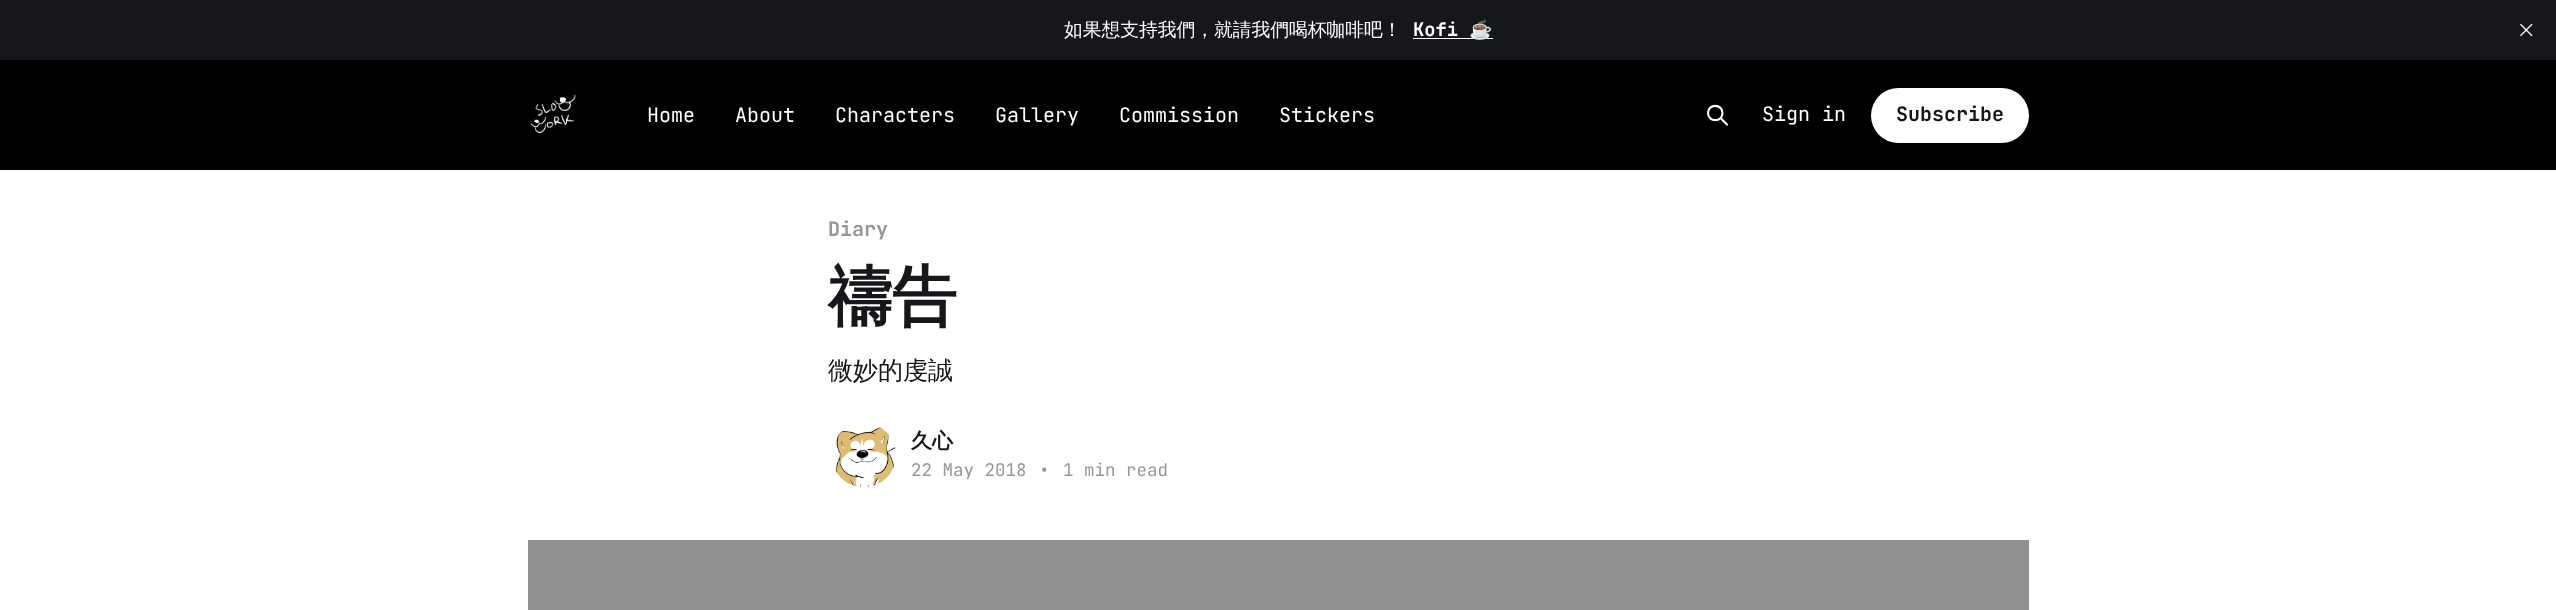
<svg xmlns="http://www.w3.org/2000/svg" width="2556" height="610" viewBox="0 0 2556 610">
  <rect width="100%" height="100%" fill="#fff"/>
  <path d="M0 0h2556v60H0z" fill="#15171a"/>
  <path d="M1413 38h80v1H1413z" fill="#fff"/>
  <image x="2520" y="23" width="13" height="14" href="img/1.png"/>
  <path d="M0 60h2556v110H0z" fill="#000"/>
  <image x="530" y="94" width="46" height="40" href="img/2.png"/>
  <path d="M1727 124.5L1720.5 118M1722.5 113C1722.5 122.5 1708 122.5 1708 113C1708 103.5 1722.5 103.5 1722.5 113Z" fill="none" stroke="#fff" stroke-width="2.1" stroke-linecap="round" stroke-linejoin="round"/>
  <rect x="1871" y="88" width="158" height="55" rx="27.5" fill="#fff"/>
  <image x="836" y="423" width="60" height="64" href="img/3.png"/>
  <path d="M528 540h1501v70H528z" fill="#909090"/>
  <text x="1064" y="36" font-family="WenQuanYi Zen Hei" font-size="18.75" font-weight="500" fill="#fff">如果想支持我們，就請我們喝杯咖啡吧！</text>
  <text x="1413" y="36" font-family="JetBrains Mono" font-size="18.75" font-weight="bold" fill="#fff">Kofi</text>
  <text x="1469" y="36" font-family="Noto Color Emoji" font-size="18.75" font-weight="bold" fill="#fff">☕️</text>
  <g font-family="JetBrains Mono" font-size="20" fill="#fff">
    <text x="647" y="122">Home</text>
    <text x="735" y="122">About</text>
    <text x="835" y="122">Characters</text>
    <text x="995" y="122">Gallery</text>
    <text x="1119" y="122">Commission</text>
    <text x="1279" y="122">Stickers</text>
    <text x="1762" y="121">Sign in</text>
  </g>
  <text x="1896" y="121" font-family="JetBrains Mono" font-size="20" font-weight="bold" fill="#15171a">Subscribe</text>
  <text x="828" y="236" font-family="JetBrains Mono" font-size="20" font-weight="bold" fill="#979797">Diary</text>
  <text x="828" y="319" font-family="WenQuanYi Zen Hei" font-size="65" font-weight="bold" letter-spacing="-1" fill="#15171a">禱告</text>
  <text x="828" y="379" font-family="WenQuanYi Zen Hei" font-size="25" font-weight="500" fill="#15171a">微妙的虔誠</text>
  <text x="911" y="448" font-family="WenQuanYi Zen Hei" font-size="21" font-weight="bold" fill="#15171a">久心</text>
  <g font-family="JetBrains Mono" font-size="17.5" fill="#979797">
    <text x="911" y="476">22 May 2018</text>
    <text x="1039" y="476">•</text>
    <text x="1063" y="476">1 min read</text>
  </g>
</svg>
